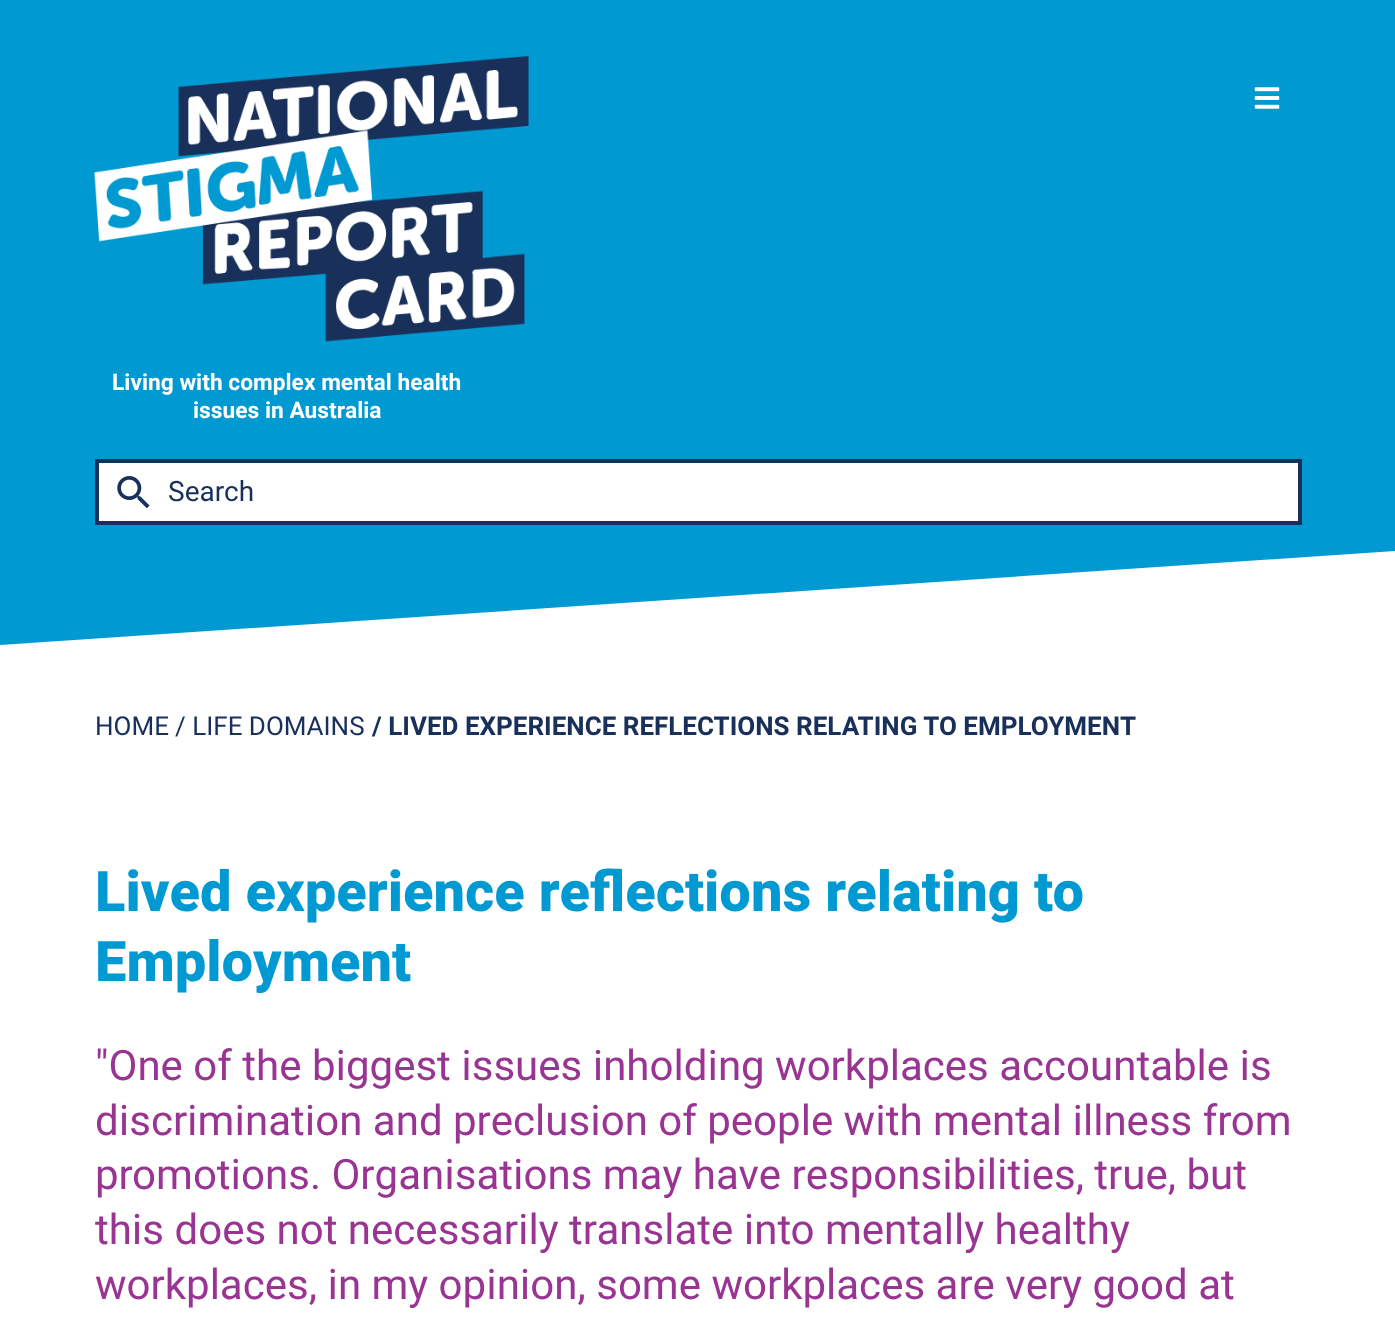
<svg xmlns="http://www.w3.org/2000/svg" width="1395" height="1322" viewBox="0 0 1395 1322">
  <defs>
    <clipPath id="clip1"><path d="M0 550h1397v106H0z"/></clipPath>
  </defs>
  <rect width="100%" height="100%" fill="#fff"/>
  <path d="M0 0h1395v550H0z" fill="#0099d1"/>
  <image x="1254" y="87" width="26" height="22" href="img/1.png"/>
  <image x="94" y="56" width="435" height="286" href="img/2.png"/>
  <path d="M97 461h1203v62H97z" fill="#fff" stroke="#19305a" stroke-width="4"/>
  <image x="117" y="476" width="33" height="33" href="img/3.png"/>
  <g clip-path="url(#clip1)">
    <path d="M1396 551L0 645V-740L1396 550Z" fill="#0099d1"/>
  </g>
  <g font-family="Heebo" font-size="22.75" font-weight="bold" fill="#fff">
    <text x="112" y="390">Living with complex mental health</text>
    <text x="193" y="418">issues in Australia</text>
  </g>
  <text x="168" y="501" font-family="Heebo" font-size="28" fill="#19305a">Search</text>
  <g font-family="Heebo" font-size="26" fill="#19305a">
    <text x="95" y="735">HOME</text>
    <text x="175" y="735">/ LIFE DOMAINS</text>
  </g>
  <text x="372" y="735" font-family="Heebo" font-size="26" font-weight="bold" fill="#19305a">/ LIVED EXPERIENCE REFLECTIONS RELATING TO EMPLOYMENT</text>
  <g font-family="Heebo" font-size="56" font-weight="800" fill="#0099d1">
    <text x="95" y="911">Lived experience reflections relating to</text>
    <text x="95" y="981">Employment</text>
  </g>
  <g font-family="Heebo" font-size="42" fill="#993493">
    <text x="95" y="1080">"One of the biggest issues inholding workplaces accountable is</text>
    <text x="95" y="1135">discrimination and preclusion of people with mental illness from</text>
    <text x="95" y="1189">promotions. Organisations may have responsibilities, true, but</text>
    <text x="95" y="1244">this does not necessarily translate into mentally healthy</text>
    <text x="95" y="1299">workplaces, in my opinion, some workplaces are very good at</text>
  </g>
</svg>
